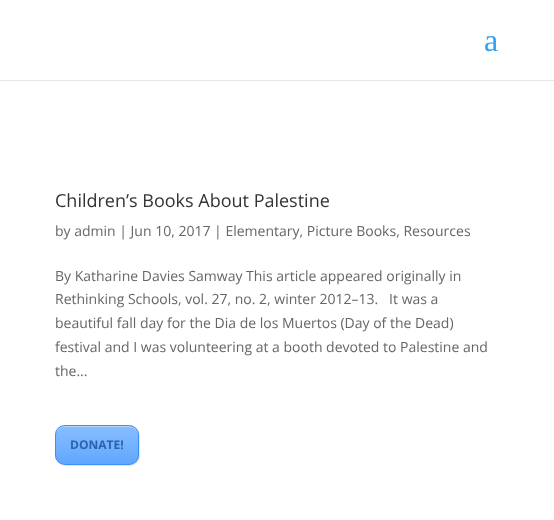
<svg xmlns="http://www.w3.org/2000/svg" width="554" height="520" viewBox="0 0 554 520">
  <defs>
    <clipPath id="clip1"><rect x="55" y="425" width="84" height="40" rx="10"/></clipPath>
    <linearGradient id="g1" gradientUnits="userSpaceOnUse" x1="97" y1="426" x2="97" y2="464"><stop offset="0" stop-color="#88bdff"/><stop offset="1" stop-color="#60a7ff"/></linearGradient>
  </defs>
  <rect width="100%" height="100%" fill="#fff"/>
  <path d="M0 80h554v1H0z" fill="#e6e6e6"/>
  <rect x="56" y="426" width="84" height="40" rx="10" fill="#0000001a" filter="blur(0.5px)"/>
  <g clip-path="url(#clip1)">
    <path d="M55 426h84v38H55z" fill="url(#g1)"/>
  </g>
  <path d="M65 427H129C134 427 138 431 138 436C138 424 127 426 118 426H76C67 426 56 424 56 436C56 431 60 427 65 427Z" fill="#ffffff66"/>
  <rect x="55.5" y="425.5" width="83" height="39" rx="9.5" fill="none" stroke="#3e8ff4"/>
  <text x="484" y="51" font-family="Liberation Serif" font-size="32" fill="#2ea3f2">a</text>
  <text x="55" y="207" font-family="Open Sans" font-size="18" fill="#333">Children’s Books About Palestine</text>
  <g font-family="Open Sans" font-size="14" fill="#666">
    <text x="55" y="236">by admin | Jun 10, 2017 | Elementary, Picture Books, Resources</text>
    <text x="55" y="281">By Katharine Davies Samway This article appeared originally in</text>
    <text x="55" y="304" xml:space="preserve">Rethinking Schools, vol. 27, no. 2, winter 2012–13.   It was a</text>
    <text x="55" y="328">beautiful fall day for the Dia de los Muertos (Day of the Dead)</text>
    <text x="55" y="352">festival and I was volunteering at a booth devoted to Palestine and</text>
    <text x="55" y="376">the...</text>
  </g>
  <text x="70" y="449" font-family="Open Sans" font-size="12" font-weight="bold" fill="#2b63a8">DONATE!</text>
</svg>
